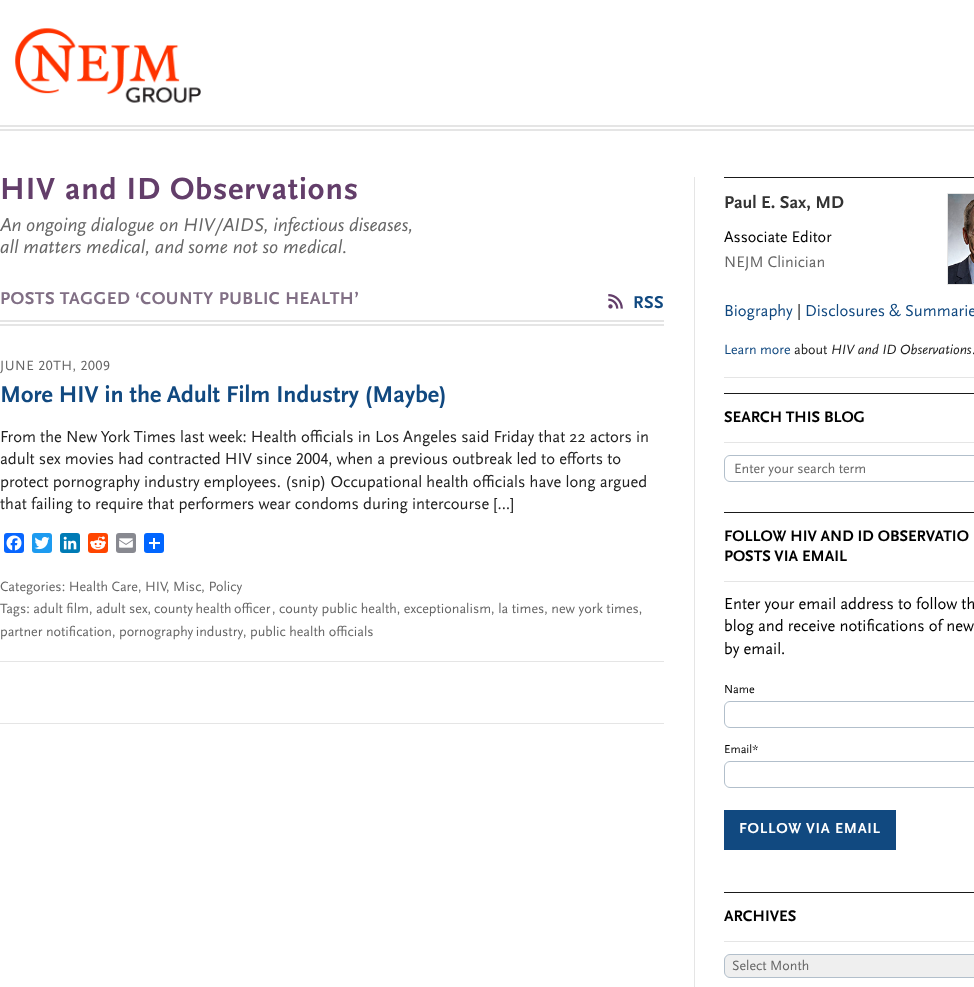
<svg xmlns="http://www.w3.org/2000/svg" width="974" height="987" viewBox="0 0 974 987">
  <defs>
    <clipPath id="clip1"><path d="M0 177h664v90H0z"/></clipPath>
  </defs>
  <rect width="100%" height="100%" fill="#fff"/>
  <image x="15" y="28" width="186" height="75" href="img/1.png"/>
  <path d="M0 125h974v2H0z" fill="#e5e5e5"/>
  <path d="M0 129h974v2H0z" fill="#e5e5e5"/>
  <image x="608" y="294" width="15" height="15" href="img/2.png"/>
  <path d="M0 320h664v2H0z" fill="#e5e5e5"/>
  <path d="M0 324h664v2H0z" fill="#e5e5e5"/>
  <rect x="4" y="533" width="20" height="20" rx="3" fill="#0866ff"/>
  <image x="6" y="535" width="16" height="16" href="img/3.png"/>
  <rect x="32" y="533" width="20" height="20" rx="3" fill="#1d9bf0"/>
  <image x="34" y="536" width="16" height="14" href="img/4.png"/>
  <rect x="60" y="533" width="20" height="20" rx="3" fill="#007bb5"/>
  <image x="63" y="536" width="14" height="14" href="img/5.png"/>
  <rect x="88" y="533" width="20" height="20" rx="3" fill="#ff4500"/>
  <image x="90" y="536" width="16" height="14" href="img/6.png"/>
  <rect x="116" y="533" width="20" height="20" rx="3" fill="#888990"/>
  <image x="119" y="538" width="14" height="10" href="img/7.png"/>
  <rect x="144" y="533" width="20" height="20" rx="3" fill="#0166ff"/>
  <path d="M153 538h2v11H153z" fill="#fff"/>
  <path d="M149 542h11v2H149z" fill="#fff"/>
  <path d="M0 661h664v1H0z" fill="#e5e5e5"/>
  <path d="M0 723h664v1H0z" fill="#e5e5e5"/>
  <path d="M694 177h1v810H694z" fill="#e5e5e5"/>
  <path d="M724 177h250v1H724z" fill="#1a1a1a"/>
  <path d="M724 377h250v1H724z" fill="#e5e5e5"/>
  <path d="M947.5 193.5h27v91H947.5z" fill="none" stroke="#e5e5e5"/>
  <image x="948" y="194" width="26" height="90" href="img/8.png"/>
  <path d="M724 393h250v1H724z" fill="#1a1a1a"/>
  <path d="M724 442h250v1H724z" fill="#e5e5e5"/>
  <rect x="724.5" y="455.5" width="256" height="26" rx="5.5" fill="none" stroke="#b2bfcb"/>
  <path d="M724 512h250v1H724z" fill="#1a1a1a"/>
  <path d="M724 581h250v1H724z" fill="#e5e5e5"/>
  <rect x="724.5" y="701.5" width="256" height="26" rx="5.5" fill="none" stroke="#b2bfcb"/>
  <rect x="724.5" y="761.5" width="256" height="26" rx="5.5" fill="none" stroke="#b2bfcb"/>
  <path d="M724 810h172v40H724z" fill="#114980"/>
  <path d="M724 892h250v1H724z" fill="#1a1a1a"/>
  <path d="M724 941h250v1H724z" fill="#e5e5e5"/>
  <rect x="724.5" y="954.5" width="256" height="23" rx="5.5" fill="#efefef" stroke="#b2bfcb"/>
  <g clip-path="url(#clip1)">
    <text x="0" y="199" font-family="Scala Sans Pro" font-size="32" font-weight="bold" letter-spacing="1" fill="#633e6a">HIV and ID Observations</text>
  </g>
  <g font-family="Scala Sans Pro" font-size="19.2" font-style="italic" fill="#666">
    <text x="0" y="231">An ongoing dialogue on HIV/AIDS, infectious diseases,</text>
    <text x="0" y="253">all matters medical, and some not so medical.</text>
  </g>
  <text x="0" y="304" font-family="Scala Sans Pro" font-size="18" font-weight="bold" letter-spacing="0.5" fill="#816f85">POSTS TAGGED ‘COUNTY PUBLIC HEALTH’</text>
  <text x="633" y="308" font-family="Scala Sans Pro" font-size="18" font-weight="bold" letter-spacing="0.5" fill="#114980">RSS</text>
  <text x="0" y="370" font-family="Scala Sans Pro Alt" font-size="14" letter-spacing="0.5" fill="#666">JUNE 20TH, 2009</text>
  <text x="0" y="402" font-family="Scala Sans Pro" font-size="24" font-weight="bold" fill="#114980">More HIV in the Adult Film Industry (Maybe)</text>
  <text x="0" y="442" font-family="Scala Sans Pro" font-size="16.5" fill="#222">From the New York Times last week: Health officials in Los Angeles said Friday that 22 actors in</text>
  <text x="0" y="464" font-family="Scala Sans Pro Alt" font-size="16.5" fill="#222">adult sex movies had contracted HIV since 2004, when a previous outbreak led to efforts to</text>
  <g font-family="Scala Sans Pro" font-size="16.5" fill="#222">
    <text x="0" y="487">protect pornography industry employees. (snip) Occupational health officials have long argued</text>
    <text x="0" y="509">that failing to require that performers wear condoms during intercourse […]</text>
  </g>
  <g font-family="Scala Sans Pro" font-size="14.05" fill="#666">
    <text x="0" y="591">Categories: Health Care, HIV</text>
    <text x="166" y="591">, Misc, Policy</text>
    <text x="0" y="613">Tags: adult film, adult sex,</text>
    <text x="154" y="613" word-spacing="-1">county health officer</text>
    <text x="272" y="613">, county public health, exceptionalism, la times, new york times,</text>
    <text x="0" y="636">partner notification,</text>
    <text x="119" y="636" word-spacing="-1">pornography industry</text>
    <text x="243" y="636">, public health officials</text>
  </g>
  <text x="724" y="208" font-family="Scala Sans Pro" font-size="18" font-weight="bold" fill="#333">Paul E. Sax, MD</text>
  <text x="724" y="242" font-family="Scala Sans Pro" font-size="16" fill="#000">Associate Editor</text>
  <text x="724" y="267" font-family="Scala Sans Pro" font-size="16" fill="#666">NEJM Clinician</text>
  <text x="724" y="316" font-family="Scala Sans Pro" font-size="16.5" fill="#114980">Biography</text>
  <text x="797" y="316" font-family="Scala Sans Pro" font-size="16.5" fill="#222">|</text>
  <text x="805" y="316" font-family="Scala Sans Pro" font-size="16.5" fill="#114980">Disclosures &amp; Summarie</text>
  <text x="724" y="354" font-family="Scala Sans Pro" font-size="14" fill="#114980">Learn more</text>
  <text x="794" y="354" font-family="Scala Sans Pro" font-size="14" fill="#222">about</text>
  <text x="831" y="354" font-family="Scala Sans Pro" font-size="14" font-style="italic" fill="#222">HIV and ID Observations</text>
  <text x="972" y="354" font-family="Scala Sans Pro" font-size="14" fill="#222">.</text>
  <text x="724" y="422" font-family="Scala Sans Pro" font-size="16" font-weight="bold" fill="#000">SEARCH THIS BLOG</text>
  <text x="734" y="473" font-family="Scala Sans Pro" font-size="14" fill="#666">Enter your search term</text>
  <g font-family="Scala Sans Pro" font-size="16" font-weight="bold" fill="#000">
    <text x="724" y="541">FOLLOW HIV AND ID OBSERVATIO</text>
    <text x="724" y="561">POSTS VIA EMAIL</text>
  </g>
  <g font-family="Scala Sans Pro" font-size="16.5" fill="#000">
    <text x="724" y="609">Enter your email address to follow th</text>
    <text x="724" y="631">blog and receive notifications of new</text>
    <text x="724" y="654">by email.</text>
  </g>
  <g font-family="Scala Sans Pro" font-size="12" fill="#000">
    <text x="724" y="693">Name</text>
    <text x="724" y="753">Email*</text>
  </g>
  <text x="739" y="833" font-family="Scala Sans Pro" font-size="15" font-weight="bold" letter-spacing="0.75" fill="#fff">FOLLOW VIA EMAIL</text>
  <text x="724" y="921" font-family="Scala Sans Pro" font-size="16" font-weight="bold" fill="#000">ARCHIVES</text>
  <text x="732" y="970" font-family="Scala Sans Pro" font-size="14" fill="#666">Select Month</text>
</svg>
